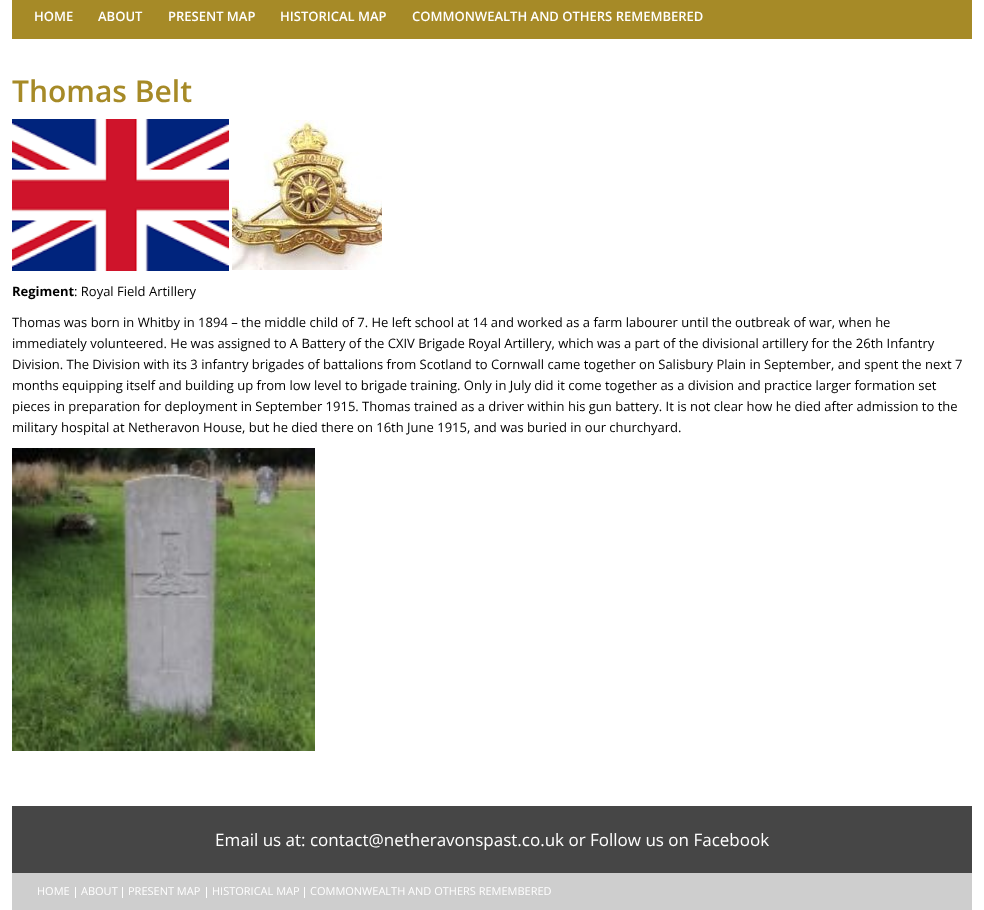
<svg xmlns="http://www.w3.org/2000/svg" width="984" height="910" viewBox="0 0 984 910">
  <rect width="100%" height="100%" fill="#fff"/>
  <path d="M12 0h960v39H12z" fill="#a68a27"/>
  <image x="12" y="119" width="217" height="152" href="img/1.png"/>
  <image x="232" y="120" width="150" height="150" href="img/2.png"/>
  <image x="12" y="448" width="303" height="303" href="img/3.png"/>
  <path d="M12 806h960v67H12z" fill="#464646"/>
  <path d="M12 873h960v37H12z" fill="#cecece"/>
  <path d="M75 887h1v11H75z" fill="#fff"/>
  <path d="M122 887h1v11H122z" fill="#fff"/>
  <path d="M206 887h1v11H206z" fill="#fff"/>
  <path d="M304 887h1v11H304z" fill="#fff"/>
  <g font-family="Open Sans" font-size="13" font-weight="600" fill="#fff">
    <text x="34" y="21">HOME</text>
    <text x="98" y="21">ABOUT</text>
    <text x="168" y="21">PRESENT MAP</text>
    <text x="280" y="21">HISTORICAL MAP</text>
    <text x="412" y="21">COMMONWEALTH AND OTHERS REMEMBERED</text>
  </g>
  <text x="12" y="102" font-family="Open Sans" font-size="30" font-weight="600" fill="#a68a27">Thomas Belt</text>
  <text x="12" y="296" font-family="Open Sans" font-size="13" font-weight="bold" fill="#000">Regiment</text>
  <g font-family="Open Sans" font-size="13" fill="#000">
    <text x="74" y="296">: Royal Field Artillery</text>
    <text x="12" y="327">Thomas was born in Whitby in 1894 – the middle child of 7. He left school at 14 and worked as a farm labourer until the outbreak of war, when he</text>
    <text x="12" y="348">immediately volunteered. He was assigned to A Battery of the CXIV Brigade Royal Artillery, which was a part of the divisional artillery for the 26th Infantry</text>
    <text x="12" y="369">Division. The Division with its 3 infantry brigades of battalions from Scotland to Cornwall came together on Salisbury Plain in September, and spent the next 7</text>
    <text x="12" y="390">months equipping itself and building up from low level to brigade training. Only in July did it come together as a division and practice larger formation set</text>
    <text x="12" y="411">pieces in preparation for deployment in September 1915. Thomas trained as a driver within his gun battery. It is not clear how he died after admission to the</text>
    <text x="12" y="432">military hospital at Netheravon House, but he died there on 16th June 1915, and was buried in our churchyard.</text>
  </g>
  <text x="215" y="846" font-family="Open Sans" font-size="17" fill="#fff">Email us at: contact@netheravonspast.co.uk or Follow us on Facebook</text>
  <g font-family="Open Sans" font-size="11" fill="#fff">
    <text x="37" y="895">HOME</text>
    <text x="81" y="895">ABOUT</text>
    <text x="128" y="895">PRESENT MAP</text>
    <text x="212" y="895">HISTORICAL MAP</text>
    <text x="310" y="895">COMMONWEALTH AND OTHERS REMEMBERED</text>
  </g>
</svg>
